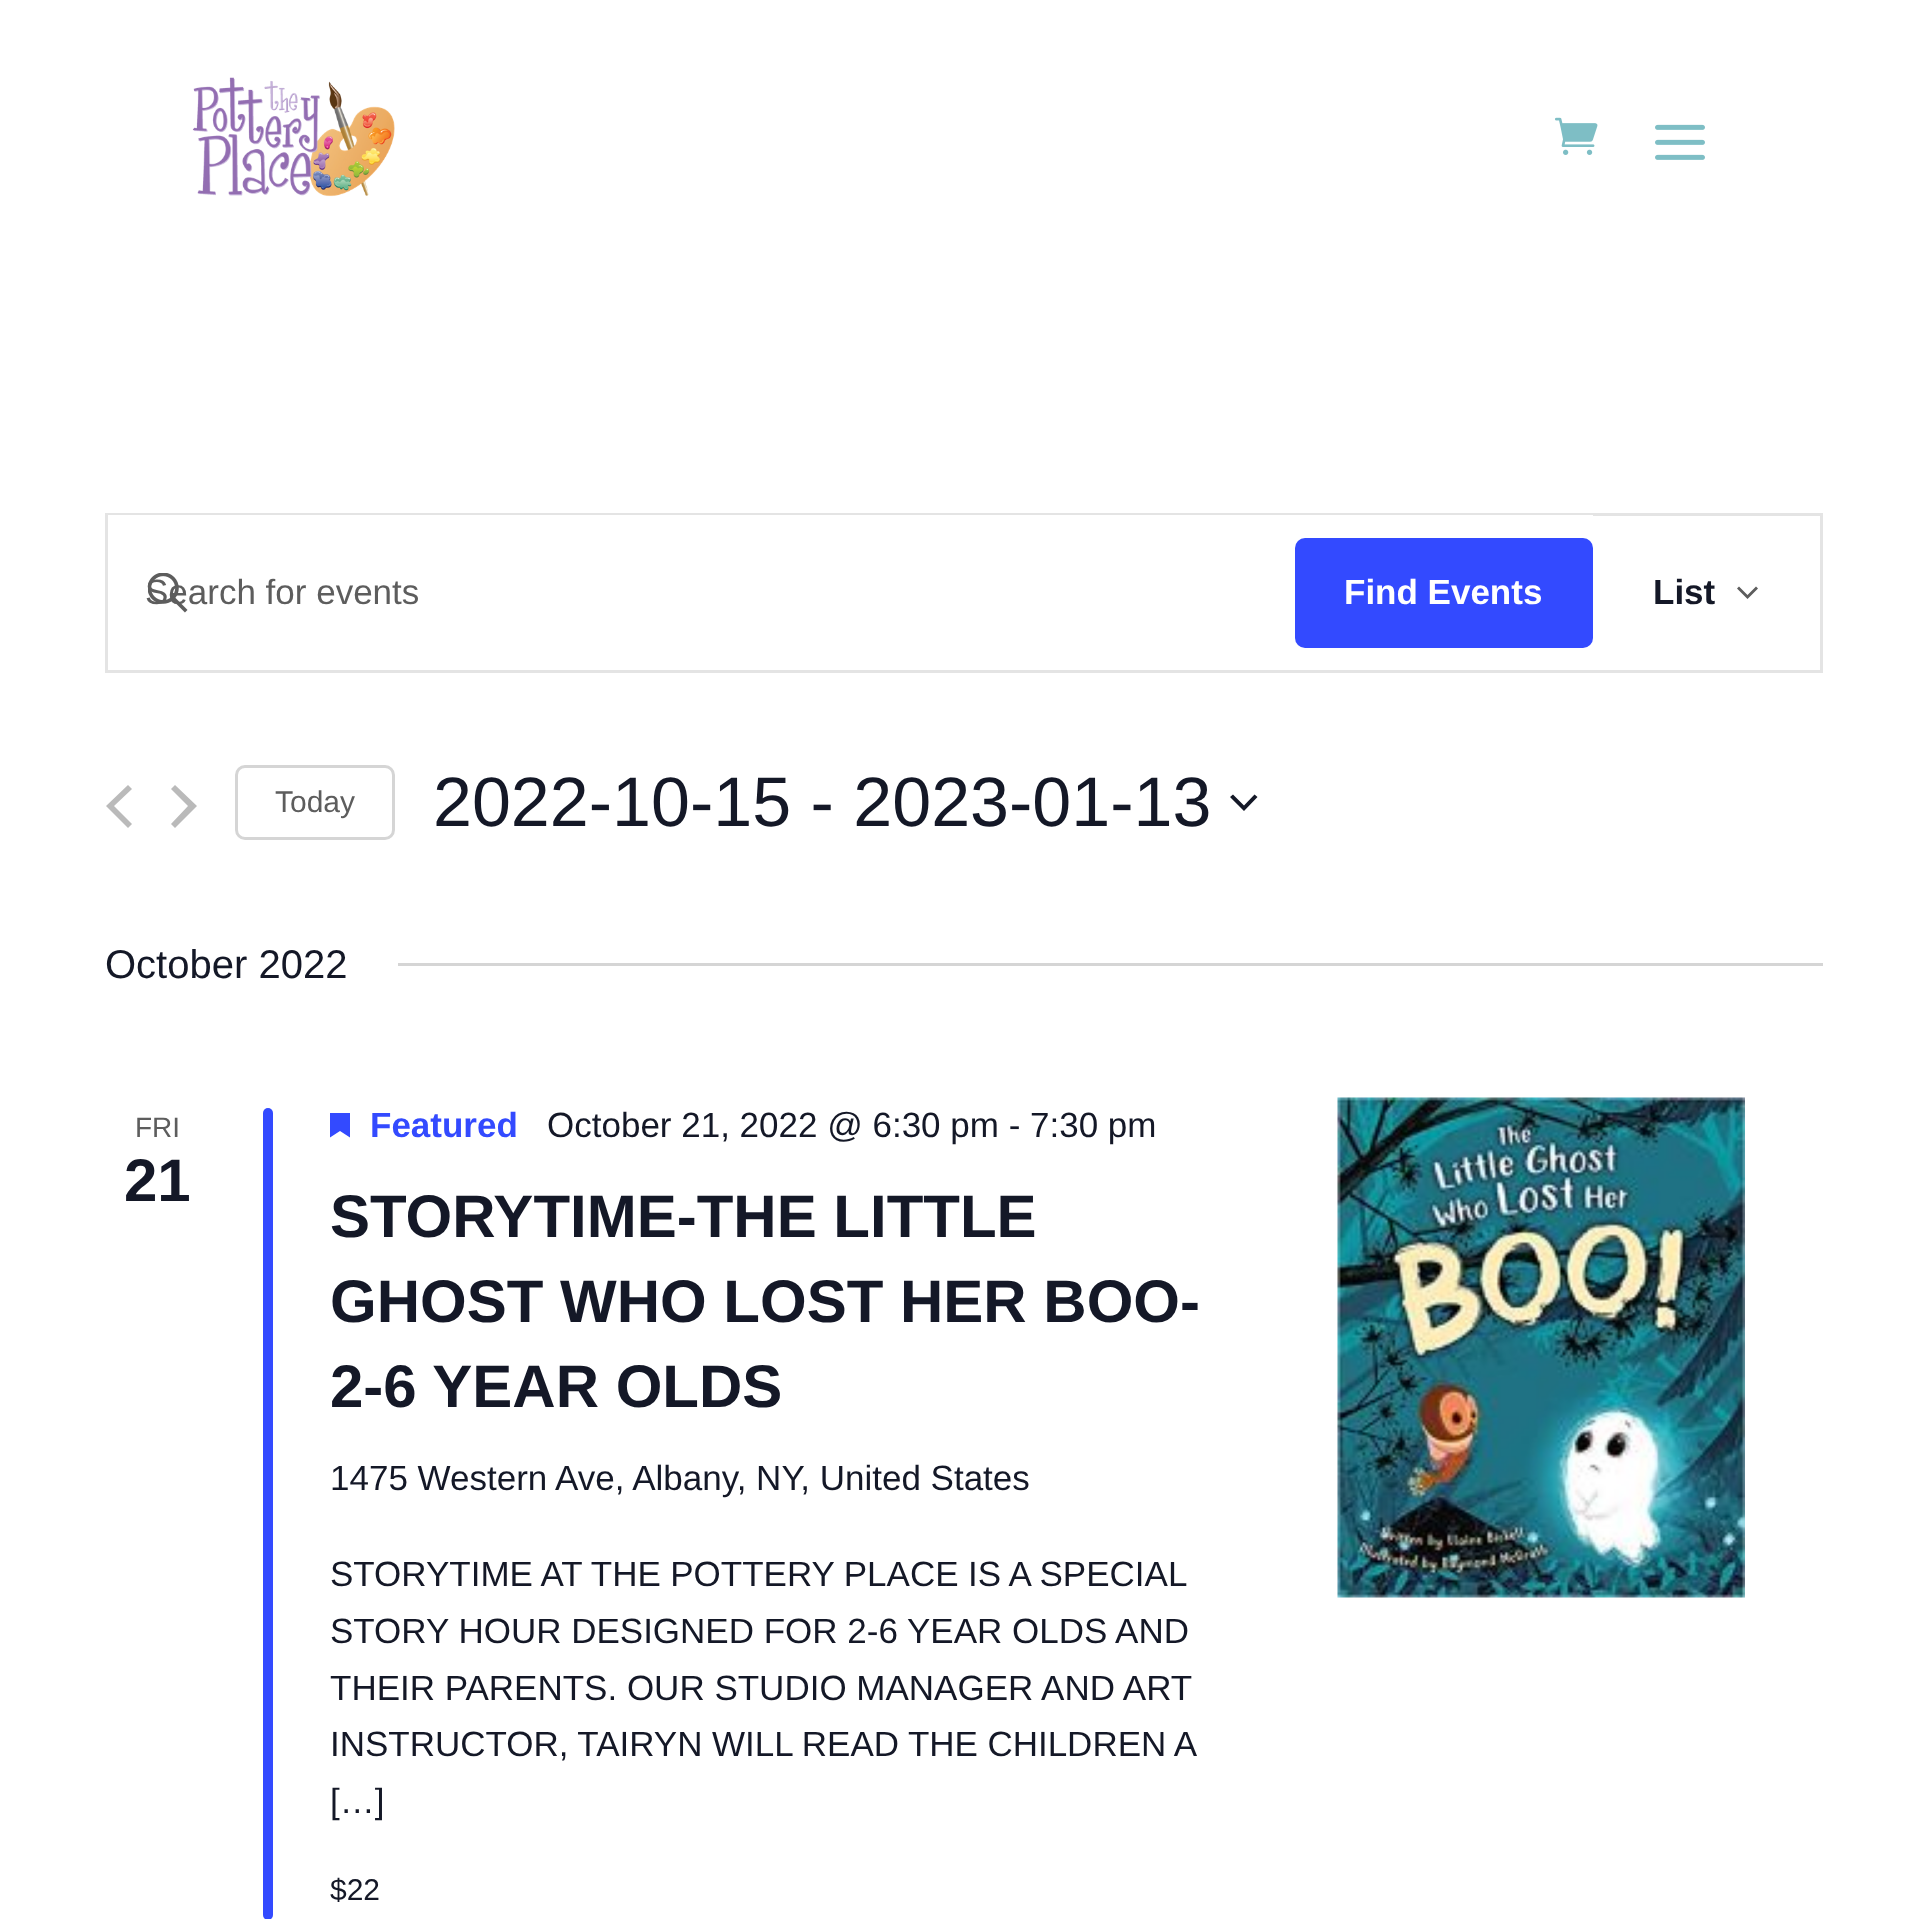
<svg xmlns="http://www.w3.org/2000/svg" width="1927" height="1919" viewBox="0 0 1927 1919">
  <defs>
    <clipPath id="clip1"><path d="M330 1113h20v25H330z"/></clipPath>
  </defs>
  <rect width="100%" height="100%" fill="#fff"/>
  <image x="192" y="77" width="203" height="120" href="img/1.png"/>
  <image x="1555" y="117" width="43" height="38" href="img/2.png"/>
  <image x="1655" y="124" width="50" height="36" href="img/3.png"/>
  <path d="M106.5 514.5h1715v157H106.5z" fill="none" stroke="#e4e4e4" stroke-width="3"/>
  <path d="M108 515h1485v1H108z" fill="#fff"/>
  <rect x="1295" y="538" width="298" height="110" rx="10" fill="#334aff"/>
  <path d="M1739 586.5L1747.5 595L1756 586.5L1758 588.5L1747.5 599L1737 588.5Z" fill="#5d5d5d" fill-rule="evenodd"/>
  <path d="M132 824L128 828L106 806L128 785L132 789L114 806Z" fill="#bababa"/>
  <path d="M171 789L175 785L197 806L175 828L171 824L188 806Z" fill="#bababa"/>
  <rect x="236.5" y="766.5" width="157" height="72" rx="8.5" fill="none" stroke="#d5d5d5" stroke-width="3"/>
  <path d="M1233 794.5L1244 805.5L1254.5 794.5L1257.5 797L1244 811L1230 797Z" fill="#141827" fill-rule="evenodd"/>
  <path d="M398 963h1425v3H398z" fill="#d5d5d5"/>
  <rect x="263" y="1108" width="10" height="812" rx="5" fill="#334aff"/>
  <g clip-path="url(#clip1)">
    <path d="M330 1112.5H350V1137.5L340 1131L330 1137.5Z" fill="#334aff" fill-rule="evenodd"/>
  </g>
  <image x="1337" y="1097" width="408" height="501" href="img/5.png"/>
  <text x="145" y="604" font-family="Liberation Sans" font-size="35" fill="#5d5d5d">Search for events</text>
  <image x="148" y="573" width="40" height="40" href="img/4.png"/>
  <text x="1344" y="604" font-family="Liberation Sans" font-size="35" font-weight="bold" fill="#fff">Find Events</text>
  <text x="1653" y="604" font-family="Liberation Sans" font-size="35" font-weight="bold" fill="#141827">List</text>
  <text x="275" y="812" font-family="Liberation Sans" font-size="30" fill="#5d5d5d">Today</text>
  <text x="433" y="826" font-family="Liberation Sans" font-size="70" fill="#141827">2022-10-15 - 2023-01-13</text>
  <text x="105" y="978" font-family="Liberation Sans" font-size="40" fill="#141827">October 2022</text>
  <text x="135" y="1137" font-family="Liberation Sans" font-size="28" fill="#5d5d5d">FRI</text>
  <text x="124" y="1201" font-family="Liberation Sans" font-size="60" font-weight="bold" fill="#141827">21</text>
  <text x="370" y="1137" font-family="Liberation Sans" font-size="35" font-weight="bold" fill="#334aff">Featured</text>
  <text x="547" y="1137" font-family="Liberation Sans" font-size="35" fill="#141827">October 21, 2022 @ 6:30 pm - 7:30 pm</text>
  <g font-family="Liberation Sans" font-size="60" font-weight="bold" fill="#141827">
    <text x="330" y="1237">STORYTIME-THE LITTLE</text>
    <text x="330" y="1322">GHOST WHO LOST HER BOO-</text>
    <text x="330" y="1407">2-6 YEAR OLDS</text>
  </g>
  <g font-family="Liberation Sans" font-size="35" fill="#141827">
    <text x="330" y="1490">1475 Western Ave, Albany, NY, United States</text>
    <text x="330" y="1586" word-spacing="-0.25">STORYTIME AT THE POTTERY PLACE IS A SPECIAL</text>
    <text x="330" y="1643">STORY HOUR DESIGNED FOR 2-6 YEAR OLDS AND</text>
    <text x="330" y="1700">THEIR PARENTS. OUR STUDIO MANAGER AND ART</text>
    <text x="330" y="1756" word-spacing="-0.25">INSTRUCTOR, TAIRYN WILL READ THE CHILDREN A</text>
    <text x="330" y="1813">[…]</text>
  </g>
  <text x="330" y="1900" font-family="Liberation Sans" font-size="30" fill="#141827">$22</text>
</svg>
